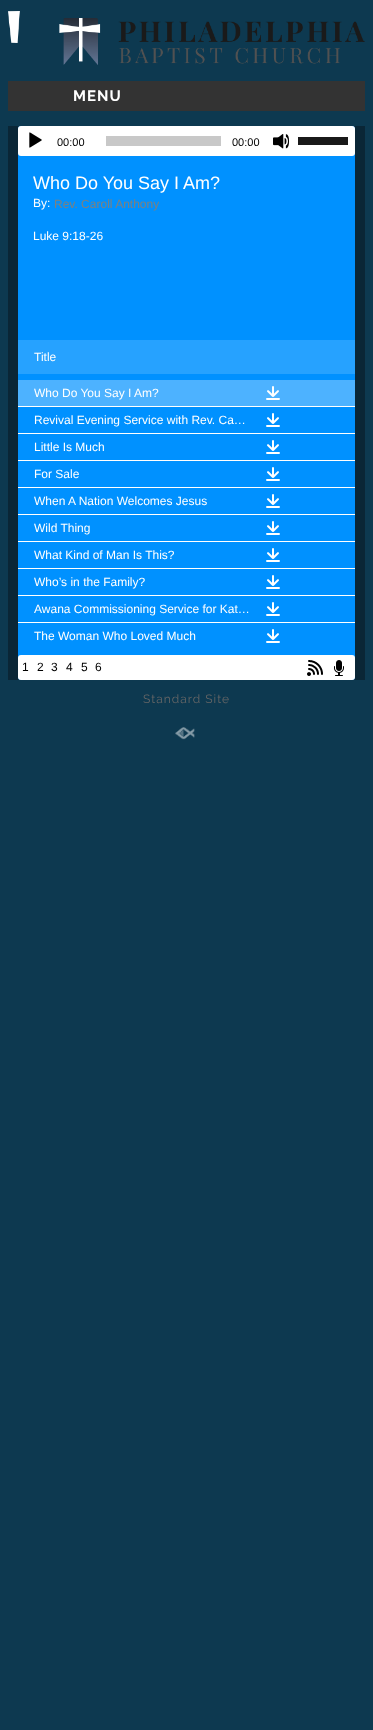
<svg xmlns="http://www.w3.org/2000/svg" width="373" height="1730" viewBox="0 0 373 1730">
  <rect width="100%" height="100%" fill="#0d3950"/>
  <image x="8" y="11" width="357" height="54" href="img/1.png"/>
  <path d="M8 81h357v30H8z" fill="#333"/>
  <path d="M8 126h357v554H8z" fill="#0a2636"/>
  <rect x="18" y="126" width="337" height="554" rx="3" fill="#0091ff"/>
  <rect x="18" y="126" width="337" height="30" rx="3" fill="#fff"/>
  <image x="29" y="132" width="13" height="16" href="img/2.png"/>
  <path d="M106 136h115v10H106z" fill="#c8c8c8"/>
  <image x="273" y="134" width="17" height="15" href="img/3.png"/>
  <path d="M298 137h50v8H298z" fill="#191919"/>
  <path d="M18 340h337v34H18z" fill="#26a2ff"/>
  <path d="M18 380h337v26H18z" fill="#4db2ff"/>
  <image x="266" y="386" width="14" height="14" href="img/4.png"/>
  <path d="M18 406h337v1H18z" fill="#fff"/>
  <image x="266" y="413" width="14" height="14" href="img/5.png"/>
  <path d="M18 433h337v1H18z" fill="#fff"/>
  <image x="266" y="440" width="14" height="14" href="img/5.png"/>
  <path d="M18 460h337v1H18z" fill="#fff"/>
  <image x="266" y="467" width="14" height="14" href="img/5.png"/>
  <path d="M18 487h337v1H18z" fill="#fff"/>
  <image x="266" y="494" width="14" height="14" href="img/5.png"/>
  <path d="M18 514h337v1H18z" fill="#fff"/>
  <image x="266" y="521" width="14" height="14" href="img/5.png"/>
  <path d="M18 541h337v1H18z" fill="#fff"/>
  <image x="266" y="548" width="14" height="14" href="img/5.png"/>
  <path d="M18 568h337v1H18z" fill="#fff"/>
  <image x="266" y="575" width="14" height="14" href="img/5.png"/>
  <path d="M18 595h337v1H18z" fill="#fff"/>
  <image x="266" y="602" width="14" height="14" href="img/5.png"/>
  <path d="M18 622h337v1H18z" fill="#fff"/>
  <image x="266" y="629" width="14" height="14" href="img/5.png"/>
  <rect x="18" y="655" width="337" height="25" rx="3" fill="#fff"/>
  <image x="307" y="660" width="16" height="16" href="img/6.png"/>
  <image x="334" y="660" width="10" height="16" href="img/7.png"/>
  <image x="175" y="727" width="20" height="13" href="img/8.png"/>
  <text x="73" y="101" font-family="Raleway" font-size="15" font-weight="bold" letter-spacing="1" fill="#fff">MENU</text>
  <g font-family="Liberation Sans" font-size="11" fill="#000">
    <text x="57" y="146">00:00</text>
    <text x="232" y="146">00:00</text>
  </g>
  <text x="33" y="189" font-family="Liberation Sans" font-size="18" fill="#fff">Who Do You Say I Am?</text>
  <text x="33" y="207" font-family="Liberation Sans" font-size="12" fill="#fff">By:</text>
  <text x="54" y="208" font-family="Liberation Sans" font-size="12" fill="#7f807d">Rev. Caroll Anthony</text>
  <g font-family="Liberation Sans" font-size="12" fill="#fff">
    <text x="33" y="240">Luke 9:18-26</text>
    <text x="34" y="361">Title</text>
    <text x="34" y="397">Who Do You Say I Am?</text>
    <text x="34" y="424">Revival Evening Service with Rev. Ca…</text>
    <text x="34" y="451">Little Is Much</text>
    <text x="34" y="478">For Sale</text>
    <text x="34" y="505">When A Nation Welcomes Jesus</text>
    <text x="34" y="532">Wild Thing</text>
    <text x="34" y="559">What Kind of Man Is This?</text>
    <text x="34" y="586">Who’s in the Family?</text>
    <text x="34" y="613">Awana Commissioning Service for Kat…</text>
    <text x="34" y="640">The Woman Who Loved Much</text>
  </g>
  <g font-family="Liberation Sans" font-size="12" fill="#000">
    <text x="22" y="671">1</text>
    <text x="37" y="671">2</text>
    <text x="51" y="671">3</text>
    <text x="66" y="671">4</text>
    <text x="81" y="671">5</text>
    <text x="95" y="671">6</text>
  </g>
  <text x="143" y="703" font-family="Raleway" font-size="12" letter-spacing="1" fill="#666">Standard Site</text>
</svg>
